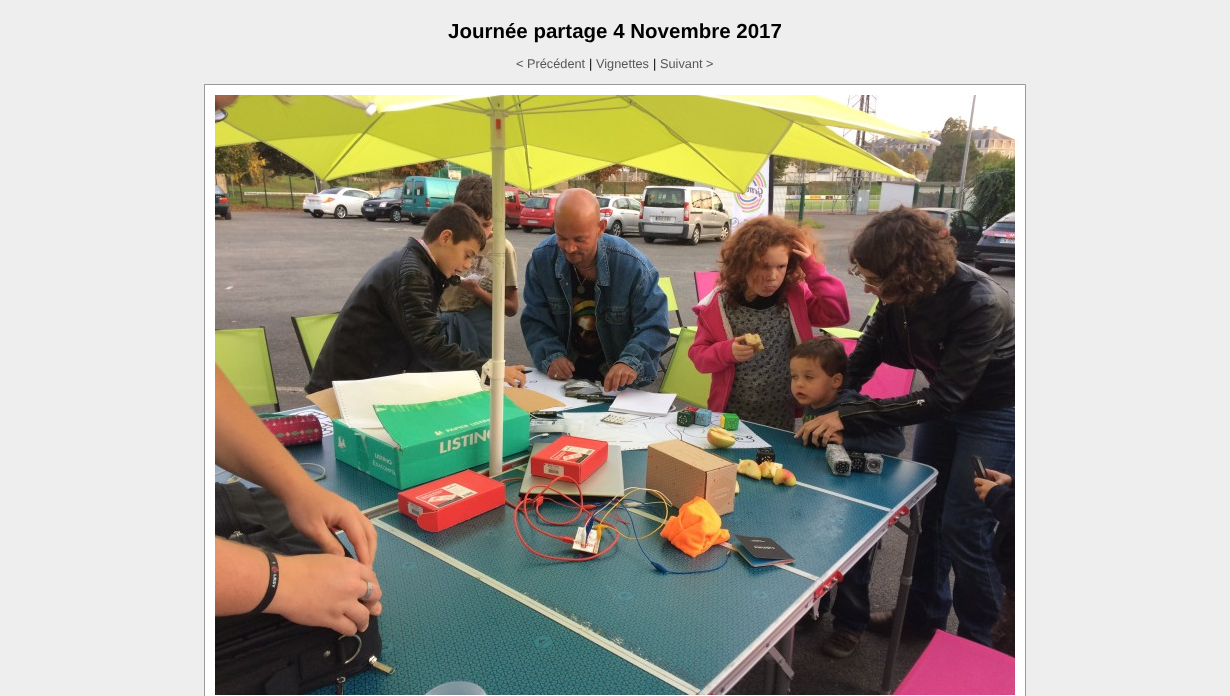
<svg xmlns="http://www.w3.org/2000/svg" width="1230" height="696" viewBox="0 0 1230 696">
  <rect width="100%" height="100%" fill="#eee"/>
  <path d="M204.5 84.5h821v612H204.5z" fill="#fff" stroke="#999"/>
  <image x="215" y="95" width="800" height="600" href="img/1.png"/>
  <text x="448" y="38" font-family="Liberation Sans" font-size="20.5" font-weight="bold" fill="#000">Journée partage 4 Novembre 2017</text>
  <text x="516" y="68" font-family="Liberation Sans" font-size="12.75" fill="#555">&lt; Précédent</text>
  <text x="589" y="68" font-family="Liberation Sans" font-size="12.75" fill="#000">|</text>
  <text x="596" y="68" font-family="Liberation Sans" font-size="12.75" fill="#555">Vignettes</text>
  <text x="653" y="68" font-family="Liberation Sans" font-size="12.75" fill="#000">|</text>
  <text x="660" y="68" font-family="Liberation Sans" font-size="12.75" fill="#555">Suivant &gt;</text>
</svg>
